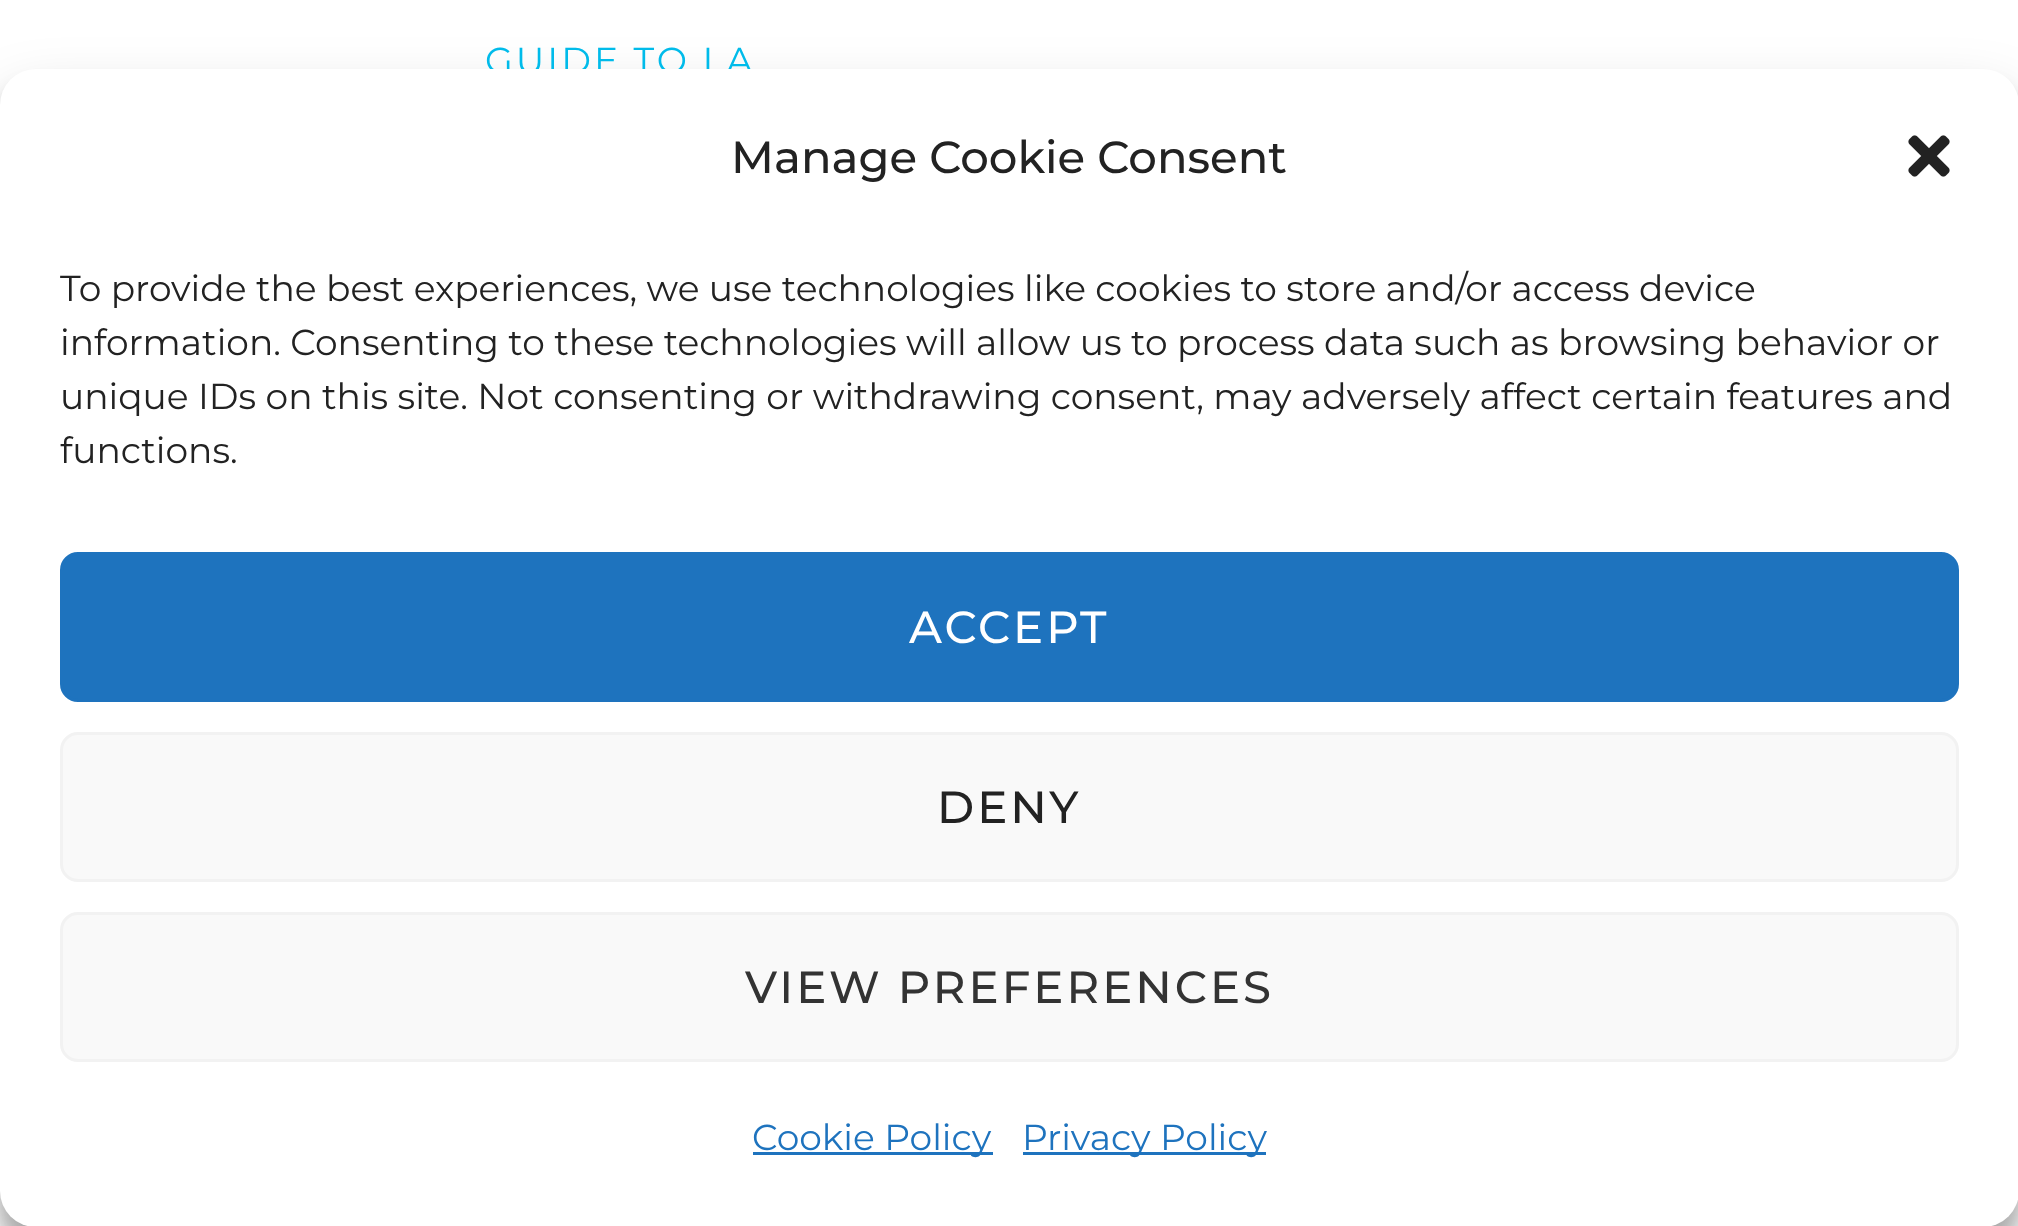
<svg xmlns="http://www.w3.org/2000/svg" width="2018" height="1226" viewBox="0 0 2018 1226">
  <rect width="100%" height="100%" fill="#fff"/>
  <rect y="87" width="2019" height="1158" rx="36" fill="#0000003b" filter="blur(9px)"/>
  <rect y="99" width="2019" height="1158" rx="36" fill="#00000030" filter="blur(30px)"/>
  <text x="485" y="73" font-family="Montserrat" font-size="36" letter-spacing="3" fill="#00bbea">GUIDE TO LA</text>
  <rect y="69" width="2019" height="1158" rx="36" fill="#fff"/>
  <text x="731" y="173" font-family="Montserrat" font-size="45" font-weight="500" fill="#222">Manage Cookie Consent</text>
  <image x="1908" y="135" width="42" height="42" href="img/1.png"/>
  <g font-family="Montserrat" font-size="36" fill="#222">
    <text x="60" y="301">To provide the best experiences, we use technologies like cookies to store and/or access device</text>
    <text x="60" y="355">information. Consenting to these technologies will allow us to process data such as browsing behavior or</text>
    <text x="60" y="409">unique IDs on this site. Not consenting or withdrawing consent, may adversely affect certain features and</text>
    <text x="60" y="463">functions.</text>
  </g>
  <rect x="61.5" y="553.5" width="1896" height="147" rx="16.5" fill="#1e73be" stroke="#1e73be" stroke-width="3"/>
  <text x="909" y="643" font-family="Montserrat" font-size="45" font-weight="500" letter-spacing="3" fill="#fff">ACCEPT</text>
  <rect x="61.5" y="733.5" width="1896" height="147" rx="16.5" fill="#f9f9f9" stroke="#f2f2f2" stroke-width="3"/>
  <text x="937" y="823" font-family="Montserrat" font-size="45" font-weight="500" letter-spacing="3" fill="#222">DENY</text>
  <rect x="61.5" y="913.5" width="1896" height="147" rx="16.5" fill="#f9f9f9" stroke="#f2f2f2" stroke-width="3"/>
  <text x="745" y="1003" font-family="Montserrat" font-size="45" font-weight="500" letter-spacing="3" fill="#333">VIEW PREFERENCES</text>
  <path d="M753 1152h240v3H753z" fill="#1e73be"/>
  <text x="752" y="1150" font-family="Montserrat" font-size="36" fill="#1e73be">Cookie Policy</text>
  <path d="M1023 1152h243v3H1023z" fill="#1e73be"/>
  <text x="1022" y="1150" font-family="Montserrat" font-size="36" fill="#1e73be">Privacy Policy</text>
</svg>
